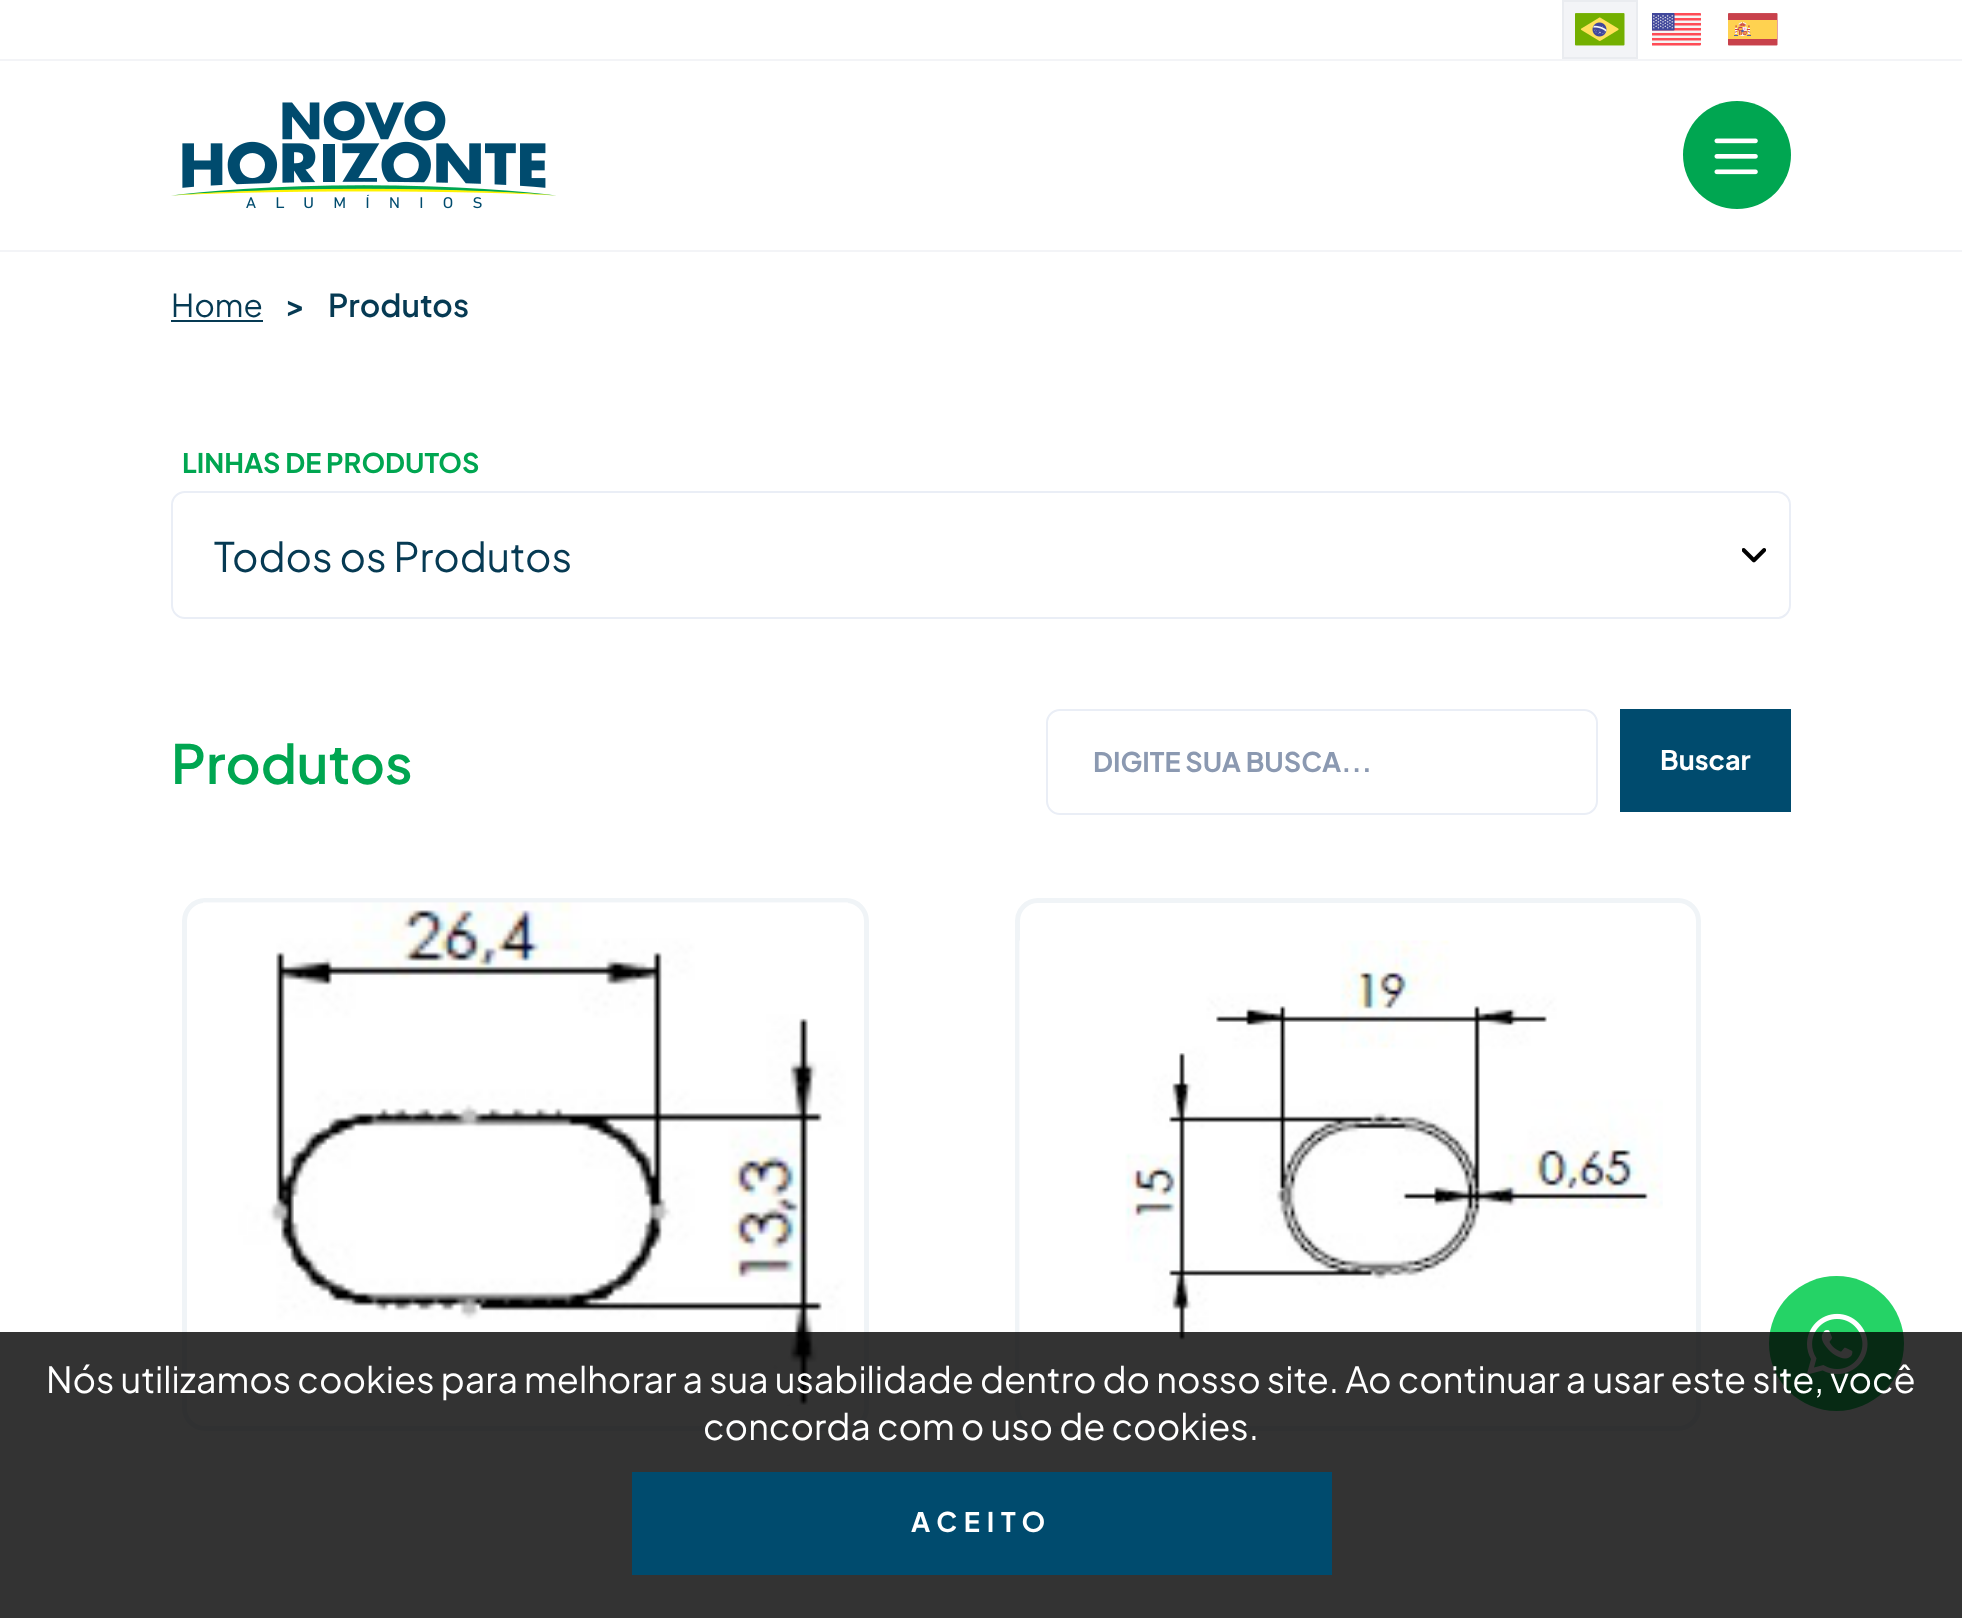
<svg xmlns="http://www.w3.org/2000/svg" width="1962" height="1618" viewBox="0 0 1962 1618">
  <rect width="100%" height="100%" fill="#fff"/>
  <path d="M0 59h1962v2H0z" fill="#f3f4f7"/>
  <path d="M1563 1h74v57H1563z" fill="#f3f4f7" stroke="#eaecf0" stroke-width="2"/>
  <image x="1575" y="13" width="50" height="33" href="img/1.png"/>
  <image x="1652" y="13" width="49" height="33" href="img/2.png"/>
  <image x="1728" y="13" width="50" height="33" href="img/3.png"/>
  <path d="M0 250h1962v2H0z" fill="#f3f4f7"/>
  <image x="171" y="101" width="385" height="108" href="img/4.png"/>
  <circle cx="1737" cy="155" r="54" fill="#00a651"/>
  <image x="1714" y="138" width="44" height="37" href="img/5.png"/>
  <path d="M171 320h92v2H171z" fill="#063a53"/>
  <image x="1742" y="548" width="24" height="15" href="img/6.png"/>
  <rect x="172" y="492" width="1618" height="126" rx="13" fill="none" stroke="#eaeef6" stroke-width="2"/>
  <rect x="1047" y="710" width="550" height="104" rx="13" fill="none" stroke="#eaeef6" stroke-width="2"/>
  <path d="M1620 709h171v103H1620z" fill="#004b6e"/>
  <rect x="184.5" y="900.5" width="682" height="528" rx="20.5" fill="none" stroke="#f0f4f7" stroke-width="5"/>
  <image x="203" y="902" width="645" height="518" href="img/7.png"/>
  <rect x="1017.5" y="900.5" width="681" height="528" rx="20.5" fill="none" stroke="#f0f4f7" stroke-width="5"/>
  <image x="1019" y="940" width="644" height="448" href="img/8.png"/>
  <circle cx="1836.5" cy="1343.5" r="67.5" fill="#25d366"/>
  <image x="1807" y="1313" width="61" height="62" href="img/9.png"/>
  <path d="M0 1332h1962v286H0z" fill="#000000cc"/>
  <path d="M632 1472h700v103H632z" fill="#004b6e"/>
  <text x="171" y="317" font-family="Plus Jakarta Sans" font-size="31.5" fill="#063a53">Home</text>
  <g font-family="Plus Jakarta Sans" font-size="31.5" font-weight="600" fill="#063a53">
    <text x="285" y="317">&gt;</text>
    <text x="328" y="317">Produtos</text>
  </g>
  <text x="182" y="473" font-family="Plus Jakarta Sans" font-size="27" font-weight="bold" fill="#00a651">LINHAS DE PRODUTOS</text>
  <text x="214" y="572" font-family="Plus Jakarta Sans" font-size="40.5" fill="#063a53">Todos os Produtos</text>
  <text x="171" y="784" font-family="Plus Jakarta Sans" font-size="54" font-weight="600" fill="#00a651">Produtos</text>
  <text x="1093" y="772" font-family="Plus Jakarta Sans" font-size="27" font-weight="bold" fill="#8b99b1">DIGITE SUA BUSCA...</text>
  <text x="1660" y="770" font-family="Plus Jakarta Sans" font-size="27" font-weight="bold" fill="#fff">Buscar</text>
  <g font-family="Plus Jakarta Sans" font-size="36" fill="#fff">
    <text x="46" y="1393">Nós utilizamos cookies para melhorar a sua usabilidade dentro do nosso site. Ao continuar a usar este site, você</text>
    <text x="703" y="1440">concorda com o uso de cookies.</text>
  </g>
  <text x="911" y="1532" font-family="Plus Jakarta Sans" font-size="27" font-weight="bold" letter-spacing="6.75" fill="#fff">ACEITO</text>
</svg>
